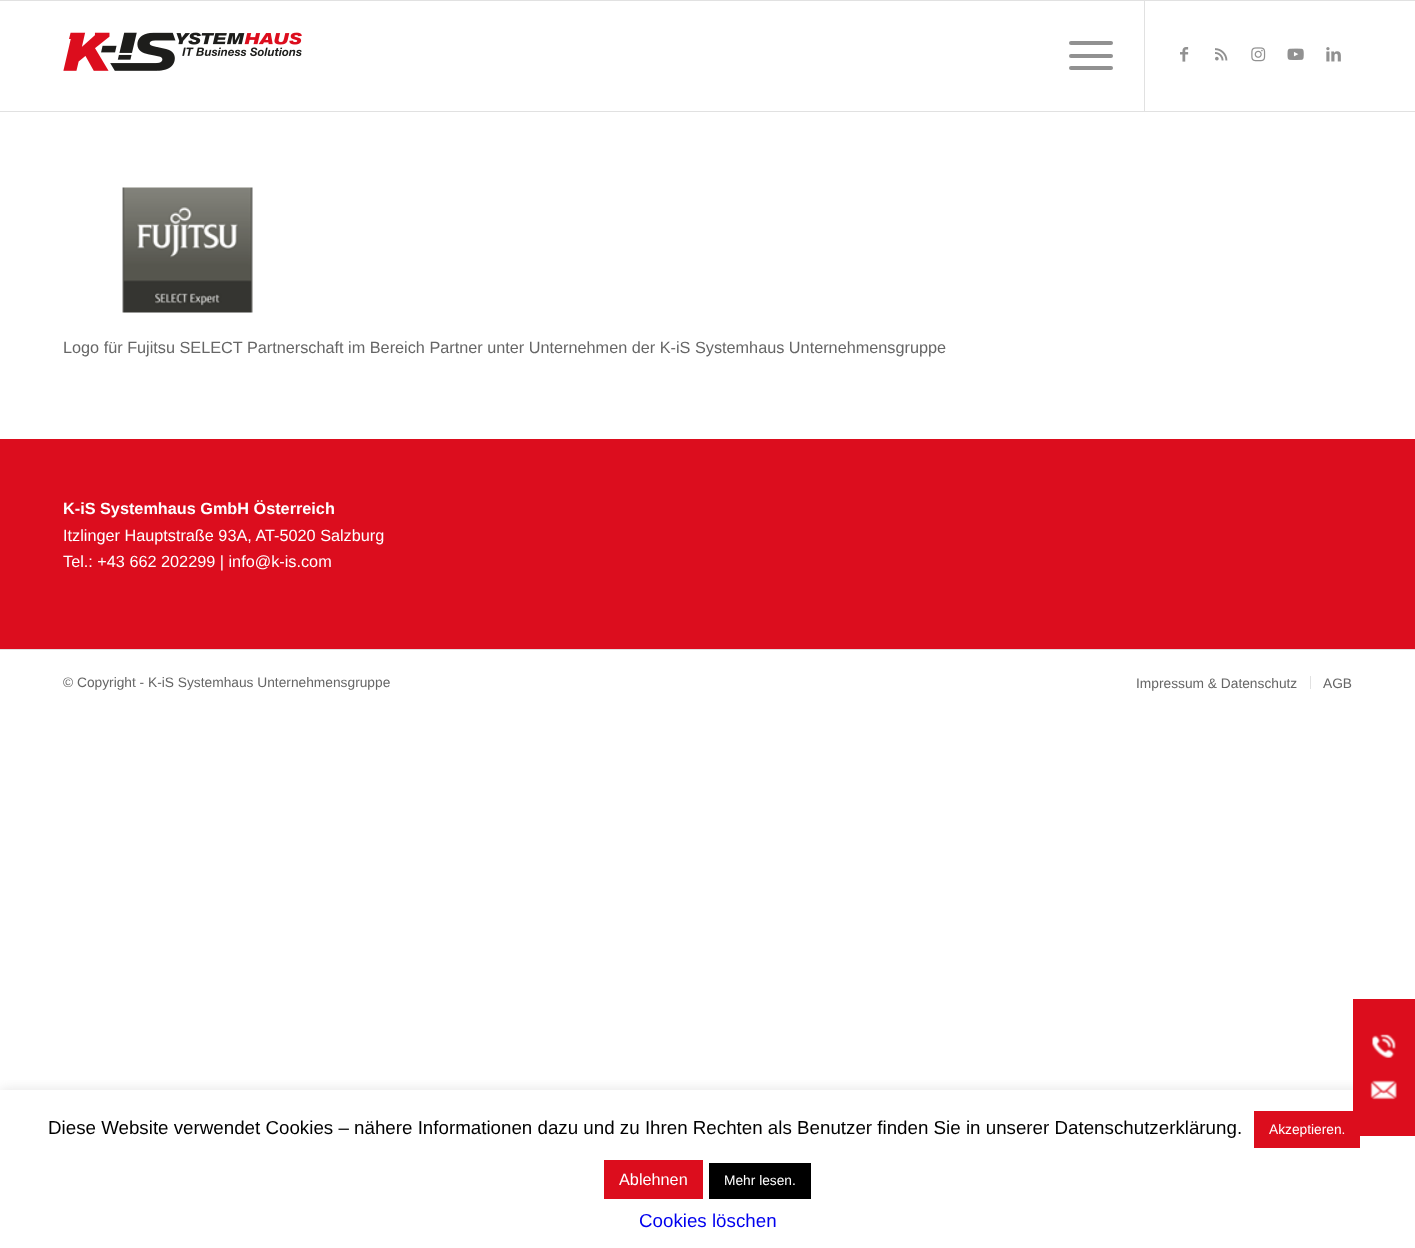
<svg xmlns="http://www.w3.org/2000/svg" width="1415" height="1248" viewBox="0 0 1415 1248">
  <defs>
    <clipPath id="clip1"><path d="M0 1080h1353v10H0z"/></clipPath>
  </defs>
  <rect width="100%" height="100%" fill="#fff"/>
  <path d="M0 0h1415v1H0z" fill="#e1e1e1"/>
  <path d="M0 111h1415v1H0z" fill="#e1e1e1"/>
  <image x="63" y="32" width="239" height="39" href="img/1.png"/>
  <path d="M1144 1h1v110H1144z" fill="#e1e1e1"/>
  <rect x="1069" y="54" width="44" height="4" rx="2" fill="#919191"/>
  <rect x="1069" y="41" width="44" height="4" rx="2" fill="#919191"/>
  <rect x="1069" y="66" width="44" height="4" rx="2" fill="#919191"/>
  <image x="1180" y="47" width="9" height="15" href="img/2.png"/>
  <image x="1215" y="48" width="13" height="13" href="img/3.png"/>
  <image x="1251" y="47" width="15" height="15" href="img/4.png"/>
  <image x="1287" y="48" width="17" height="12" href="img/5.png"/>
  <image x="1326" y="47" width="15" height="15" href="img/6.png"/>
  <image x="122" y="187" width="131" height="126" href="img/7.png"/>
  <path d="M0 439h1415v210H0z" fill="#dc0d1e"/>
  <path d="M0 649h1415v1H0z" fill="#e1e1e1"/>
  <path d="M1310 676h1v13H1310z" fill="#e1e1e1"/>
  <g clip-path="url(#clip1)">
    <path d="M0 1089h1415v159H0z" fill="#acabab4d" filter="blur(6px)"/>
  </g>
  <path d="M1254 1111h106v37H1254z" fill="#dc0d1d"/>
  <path d="M1353 999h62v137H1353z" fill="#dc0d1d"/>
  <image x="1370" y="1034" width="27" height="66" href="img/8.png"/>
  <path d="M604 1160h99v39H604z" fill="#dc0d1d"/>
  <path d="M709 1163h102v36H709z" fill="#000"/>
  <text x="63" y="353" font-family="Liberation Sans" font-size="16.25" fill="#666">Logo für Fujitsu SELECT Partnerschaft im Bereich Partner unter Unternehmen der K-iS Systemhaus Unternehmensgruppe</text>
  <text x="63" y="514" font-family="Liberation Sans" font-size="16.25" font-weight="bold" fill="#fff">K-iS Systemhaus GmbH Österreich</text>
  <g font-family="Liberation Sans" font-size="16.25" fill="#fff">
    <text x="63" y="541">Itzlinger Hauptstraße 93A, AT-5020 Salzburg</text>
    <text x="63" y="567">Tel.: +43 662 202299 | info@k-is.com</text>
  </g>
  <g font-family="Liberation Sans" font-size="13.75" fill="#666">
    <text x="63" y="687">© Copyright - K-iS Systemhaus Unternehmensgruppe</text>
    <text x="1136" y="688">Impressum &amp; Datenschutz</text>
    <text x="1323" y="688">AGB</text>
  </g>
  <text x="48" y="1134" font-family="Liberation Sans" font-size="18.75" fill="#000">Diese Website verwendet Cookies – nähere Informationen dazu und zu Ihren Rechten als Benutzer finden Sie in unserer Datenschutzerklärung.</text>
  <text x="1269" y="1134" font-family="Liberation Sans" font-size="13.75" fill="#fff">Akzeptieren.</text>
  <text x="619" y="1185" font-family="Liberation Sans" font-size="16.25" fill="#fff">Ablehnen</text>
  <text x="724" y="1185" font-family="Liberation Sans" font-size="13.75" fill="#fff">Mehr lesen.</text>
  <text x="639" y="1227" font-family="Liberation Sans" font-size="18.75" fill="#00e">Cookies löschen</text>
</svg>
